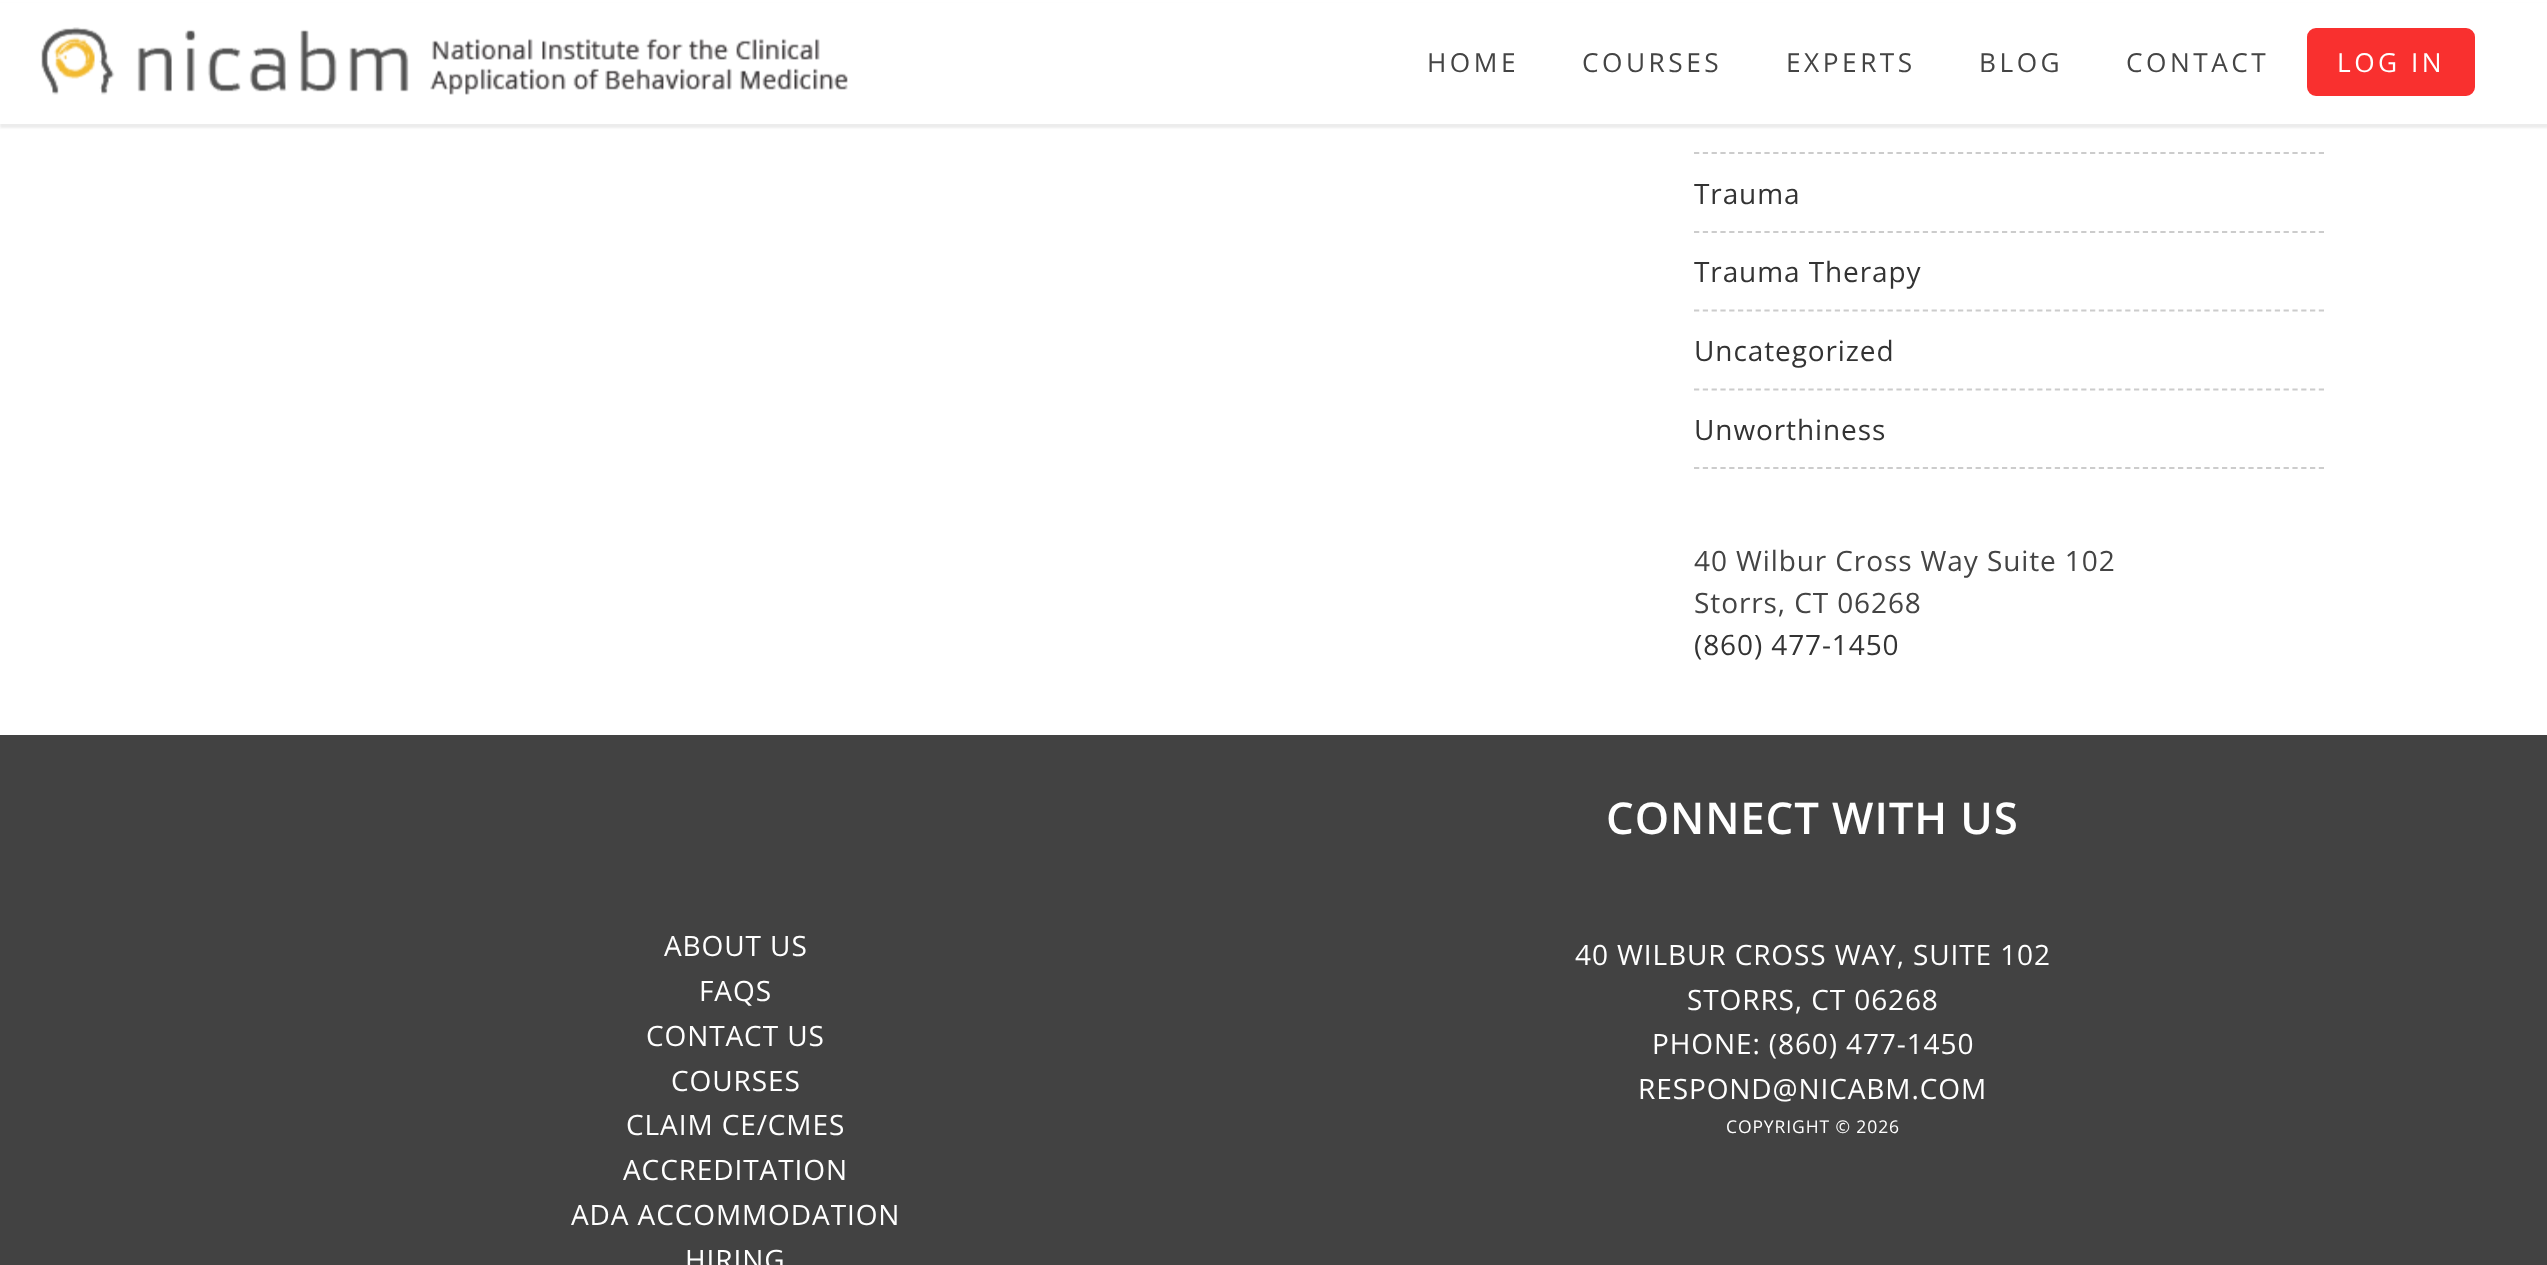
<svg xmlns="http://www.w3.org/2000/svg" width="2547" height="1265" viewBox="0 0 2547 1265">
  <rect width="100%" height="100%" fill="#fff"/>
  <path d="M0 4h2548v124H0z" fill="#ececec" filter="blur(1px)"/>
  <path d="M0 3h2547v121H0z" fill="#fff"/>
  <image x="41" y="27" width="807" height="68" href="img/1.png"/>
  <rect x="2309" y="30" width="164" height="64" rx="7" fill="#f9302f" stroke="#f9302f" stroke-width="4"/>
  <path d="M1694 153H2324" fill="none" stroke="#ccc" stroke-width="1.8" stroke-dasharray="5.25 3.55"/>
  <path d="M1694 232H2324" fill="none" stroke="#ccc" stroke-width="1.8" stroke-dasharray="5.25 3.55"/>
  <path d="M1694 310.5H2324" fill="none" stroke="#ccc" stroke-width="1.8" stroke-dasharray="5.25 3.55"/>
  <path d="M1694 389.5H2324" fill="none" stroke="#ccc" stroke-width="1.8" stroke-dasharray="5.25 3.55"/>
  <path d="M1694 468H2324" fill="none" stroke="#ccc" stroke-width="1.8" stroke-dasharray="5.25 3.55"/>
  <path d="M0 735h2547v530H0z" fill="#424242"/>
  <g font-family="Open Sans" font-size="26.25" letter-spacing="3.5" fill="#444">
    <text x="1427" y="72">HOME</text>
    <text x="1582" y="72">COURSES</text>
    <text x="1786" y="72">EXPERTS</text>
    <text x="1979" y="72">BLOG</text>
    <text x="2126" y="72">CONTACT</text>
  </g>
  <text x="2337" y="72" font-family="Open Sans" font-size="26.25" letter-spacing="3.5" fill="#fff">LOG IN</text>
  <g font-family="Open Sans" font-size="28" letter-spacing="0.9" fill="#333">
    <text x="1694" y="204">Trauma</text>
    <text x="1694" y="282">Trauma Therapy</text>
    <text x="1694" y="361">Uncategorized</text>
    <text x="1694" y="440">Unworthiness</text>
  </g>
  <g font-family="Open Sans" font-size="28" letter-spacing="0.9" fill="#444">
    <text x="1694" y="571">40 Wilbur Cross Way Suite 102</text>
    <text x="1694" y="613">Storrs, CT 06268</text>
  </g>
  <text x="1694" y="655" font-family="Open Sans" font-size="28" letter-spacing="0.9" fill="#333">(860) 477-1450</text>
  <g font-family="Open Sans" font-size="28" letter-spacing="0.9" fill="#fff">
    <text x="664" y="956">ABOUT US</text>
    <text x="699" y="1001">FAQS</text>
    <text x="646" y="1046">CONTACT US</text>
    <text x="671" y="1091">COURSES</text>
    <text x="626" y="1135">CLAIM CE/CMES</text>
    <text x="623" y="1180">ACCREDITATION</text>
    <text x="571" y="1225">ADA ACCOMMODATION</text>
    <text x="685" y="1270">HIRING</text>
  </g>
  <text x="1606" y="834" font-family="Open Sans" font-size="43.75" font-weight="600" letter-spacing="0.9" fill="#fff">CONNECT WITH US</text>
  <g font-family="Open Sans" font-size="28" letter-spacing="0.9" fill="#fff">
    <text x="1575" y="965">40 WILBUR CROSS WAY, SUITE 102</text>
    <text x="1687" y="1010">STORRS, CT 06268</text>
    <text x="1652" y="1054">PHONE: (860) 477-1450</text>
    <text x="1638" y="1099">RESPOND@NICABM.COM</text>
  </g>
  <text x="1726" y="1133" font-family="Open Sans" font-size="17.5" letter-spacing="0.9" fill="#fff">COPYRIGHT © 2026</text>
</svg>
